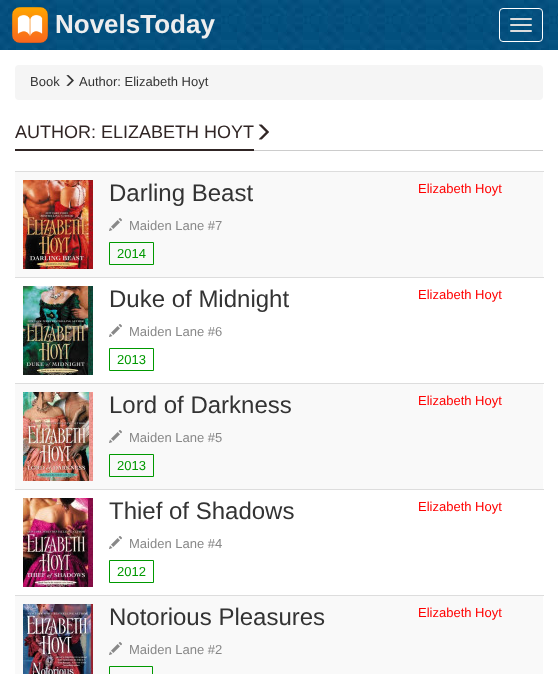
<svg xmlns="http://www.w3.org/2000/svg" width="558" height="674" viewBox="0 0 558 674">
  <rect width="100%" height="100%" fill="#fff"/>
  <image x="0" y="0" width="558" height="50" href="img/1.png"/>
  <image x="12" y="7" width="36" height="36" href="img/2.png"/>
  <rect x="499.5" y="8.5" width="43" height="33" rx="3.5" fill="none" stroke="#fff"/>
  <rect x="510" y="18" width="22" height="2" rx="1" fill="#ddd"/>
  <rect x="510" y="24" width="22" height="2" rx="1" fill="#ddd"/>
  <rect x="510" y="30" width="22" height="2" rx="1" fill="#ddd"/>
  <rect x="15" y="65" width="528" height="35" rx="4" fill="#f5f5f5"/>
  <image x="66" y="75" width="8" height="11" href="img/3.png"/>
  <path d="M254 150h289v1H254z" fill="#ccc"/>
  <path d="M15 149h239v2H15z" fill="#302524"/>
  <image x="258" y="124" width="11" height="16" href="img/4.png"/>
  <path d="M15 172h528v105H15z" fill="#f9f9f9"/>
  <image x="23" y="180" width="70" height="89" href="img/5.png"/>
  <image x="109" y="218" width="13" height="13" href="img/6.png"/>
  <path d="M109.5 242.5h44v22H109.5z" fill="none" stroke="#090"/>
  <path d="M15 171h529v1H15z" fill="#ddd"/>
  <image x="23" y="286" width="70" height="89" href="img/7.png"/>
  <image x="109" y="324" width="13" height="13" href="img/8.png"/>
  <path d="M109.5 348.5h44v22H109.5z" fill="none" stroke="#090"/>
  <path d="M15 277h529v1H15z" fill="#ddd"/>
  <path d="M15 384h528v105H15z" fill="#f9f9f9"/>
  <image x="23" y="392" width="70" height="89" href="img/9.png"/>
  <image x="109" y="430" width="13" height="13" href="img/6.png"/>
  <path d="M109.5 454.5h44v22H109.5z" fill="none" stroke="#090"/>
  <path d="M15 383h529v1H15z" fill="#ddd"/>
  <image x="23" y="498" width="70" height="89" href="img/10.png"/>
  <image x="109" y="536" width="13" height="13" href="img/8.png"/>
  <path d="M109.5 560.5h44v22H109.5z" fill="none" stroke="#090"/>
  <path d="M15 489h529v1H15z" fill="#ddd"/>
  <path d="M15 596h528v78H15z" fill="#f9f9f9"/>
  <image x="23" y="604" width="70" height="70" href="img/11.png"/>
  <image x="109" y="642" width="13" height="13" href="img/6.png"/>
  <path d="M109.5 666.5h43v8H109.5z" fill="none" stroke="#090"/>
  <path d="M15 595h529v1H15z" fill="#ddd"/>
  <text x="55" y="33" font-family="Liberation Sans" font-size="26" font-weight="bold" fill="#eee">NovelsToday</text>
  <g font-family="Liberation Sans" font-size="13" fill="#333">
    <text x="30" y="86">Book</text>
    <text x="79" y="86">Author: Elizabeth Hoyt</text>
  </g>
  <text x="15" y="138" font-family="Liberation Sans" font-size="18" fill="#302524">AUTHOR: ELIZABETH HOYT</text>
  <text x="109" y="201" font-family="Liberation Sans" font-size="24" fill="#333">Darling Beast</text>
  <text x="129" y="230" font-family="Liberation Sans" font-size="13" fill="#888">Maiden Lane #7</text>
  <text x="117" y="258" font-family="Liberation Sans" font-size="13" fill="#090">2014</text>
  <text x="418" y="193" font-family="Liberation Sans" font-size="13" fill="#f00">Elizabeth Hoyt</text>
  <text x="109" y="307" font-family="Liberation Sans" font-size="24" fill="#333">Duke of Midnight</text>
  <text x="129" y="336" font-family="Liberation Sans" font-size="13" fill="#888">Maiden Lane #6</text>
  <text x="117" y="364" font-family="Liberation Sans" font-size="13" fill="#090">2013</text>
  <text x="418" y="299" font-family="Liberation Sans" font-size="13" fill="#f00">Elizabeth Hoyt</text>
  <text x="109" y="413" font-family="Liberation Sans" font-size="24" fill="#333">Lord of Darkness</text>
  <text x="129" y="442" font-family="Liberation Sans" font-size="13" fill="#888">Maiden Lane #5</text>
  <text x="117" y="470" font-family="Liberation Sans" font-size="13" fill="#090">2013</text>
  <text x="418" y="405" font-family="Liberation Sans" font-size="13" fill="#f00">Elizabeth Hoyt</text>
  <text x="109" y="519" font-family="Liberation Sans" font-size="24" fill="#333">Thief of Shadows</text>
  <text x="129" y="548" font-family="Liberation Sans" font-size="13" fill="#888">Maiden Lane #4</text>
  <text x="117" y="576" font-family="Liberation Sans" font-size="13" fill="#090">2012</text>
  <text x="418" y="511" font-family="Liberation Sans" font-size="13" fill="#f00">Elizabeth Hoyt</text>
  <text x="109" y="625" font-family="Liberation Sans" font-size="24" fill="#333">Notorious Pleasures</text>
  <text x="129" y="654" font-family="Liberation Sans" font-size="13" fill="#888">Maiden Lane #2</text>
  <text x="418" y="617" font-family="Liberation Sans" font-size="13" fill="#f00">Elizabeth Hoyt</text>
</svg>
